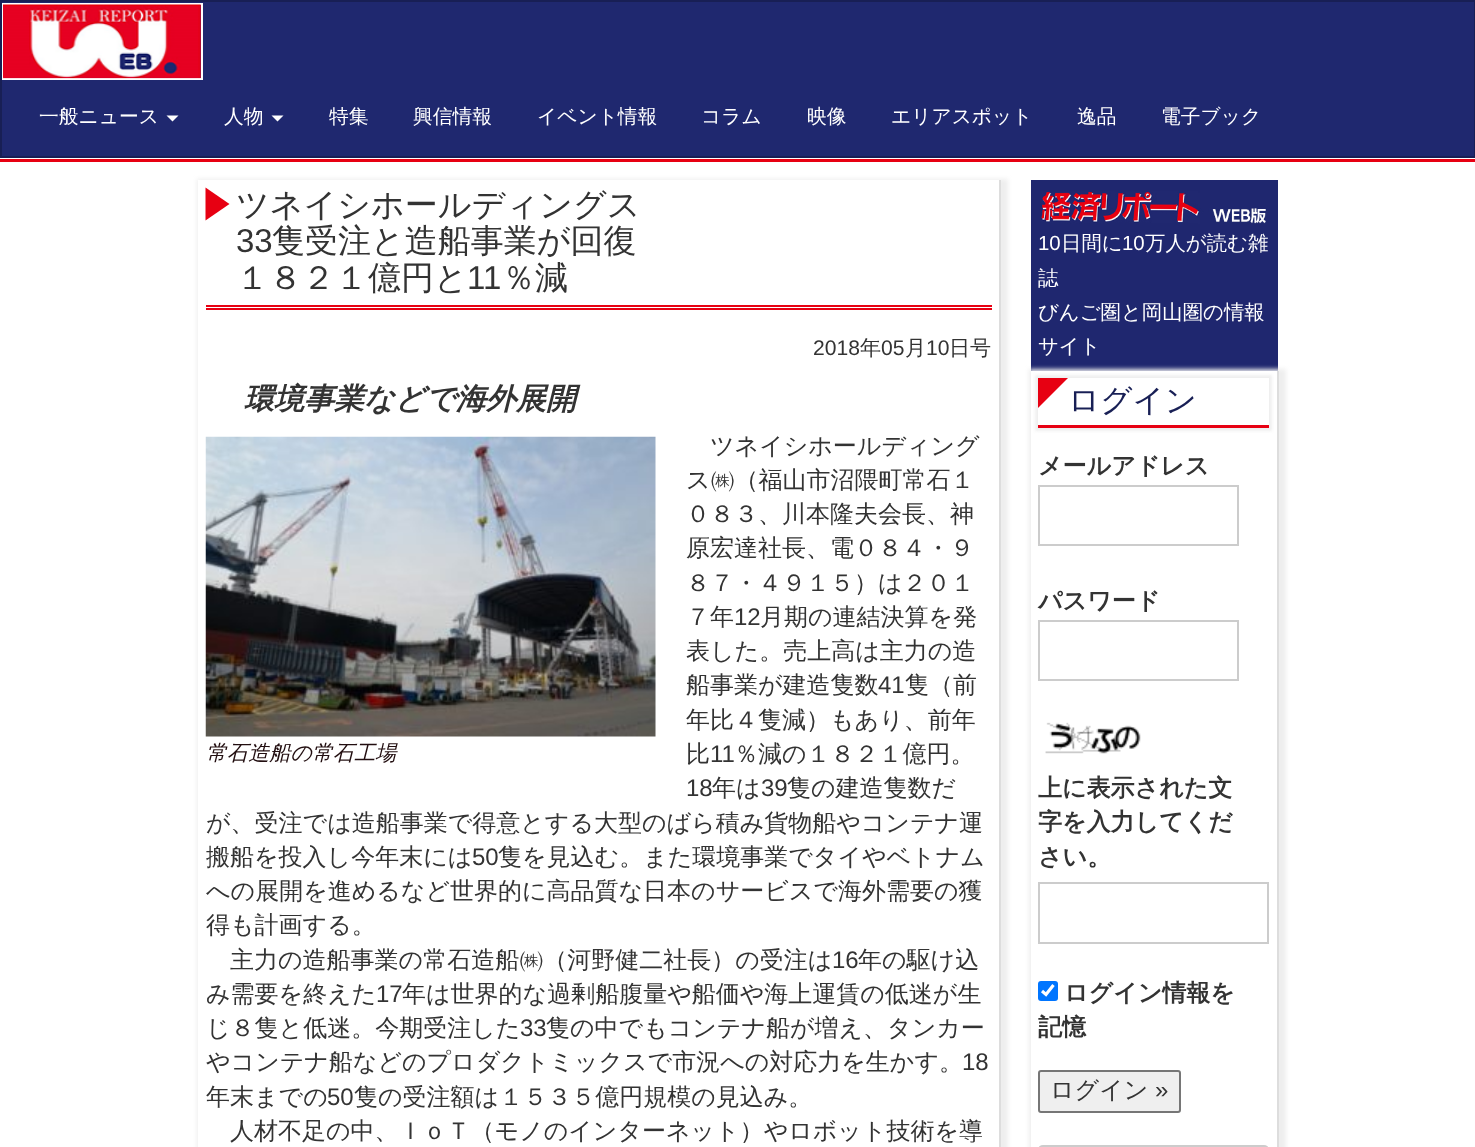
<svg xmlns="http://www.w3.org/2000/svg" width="1475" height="1147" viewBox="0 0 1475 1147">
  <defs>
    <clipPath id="clip1"><path d="M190 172H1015V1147H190ZM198 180H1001V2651H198Z" clip-rule="evenodd"/></clipPath>
    <clipPath id="clip2"><path d="M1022 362H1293V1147H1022ZM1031 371H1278V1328H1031Z" clip-rule="evenodd"/></clipPath>
    <clipPath id="clip3"><path d="M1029 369H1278V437H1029ZM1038 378H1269V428H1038Z" clip-rule="evenodd"/></clipPath>
  </defs>
  <rect width="100%" height="100%" fill="#fff"/>
  <path d="M0 159h1475v3H0z" fill="#e70012"/>
  <path d="M1 1h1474v156H1z" fill="#1f286f" stroke="#181f55" stroke-width="2"/>
  <path d="M3 4h199v75H3z" fill="none" stroke="#fff" stroke-width="2"/>
  <image x="3" y="4" width="198" height="75" href="img/1.png"/>
  <path d="M166.5 115.5H178.5L172.5 121.5Z" fill="#fff"/>
  <path d="M271.5 115.5H283.5L277.5 121.5Z" fill="#fff"/>
  <g clip-path="url(#clip1)">
    <path d="M197 179h811v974H197z" fill="#eee" filter="blur(2px)"/>
  </g>
  <path d="M999 180h2v967H999z" fill="#ddd"/>
  <path d="M206 305h786v2H206z" fill="#e70012"/>
  <path d="M206 308h786v2H206z" fill="#e70012"/>
  <path d="M205.5 220.5V187.5L229.5 204Z" fill="#e70012"/>
  <image x="205" y="436" width="451" height="301" href="img/2.png"/>
  <path d="M1031 180h247v191H1031z" fill="#1f276f"/>
  <image x="1041" y="191" width="225" height="33" href="img/3.png"/>
  <g clip-path="url(#clip2)">
    <path d="M1029 369h257v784H1029z" fill="#eee" filter="blur(2px)"/>
  </g>
  <path d="M1277 371h2v776H1277z" fill="#ddd"/>
  <g clip-path="url(#clip3)">
    <path d="M1035 375h237v56H1035z" fill="#efefef" filter="blur(1.5px)"/>
  </g>
  <path d="M1038 425h231v3H1038z" fill="#e70012"/>
  <path d="M1038 378H1068L1038 408Z" fill="#e70012"/>
  <path d="M1039 486h199v59H1039z" fill="none" stroke="#ccc" stroke-width="2"/>
  <path d="M1039 621h199v59H1039z" fill="none" stroke="#ccc" stroke-width="2"/>
  <image x="1045" y="722" width="96" height="32" href="img/4.png"/>
  <path d="M1039 883h229v60H1039z" fill="none" stroke="#ccc" stroke-width="2"/>
  <rect x="1038" y="981" width="20" height="20" rx="3" fill="#0075ff"/>
  <path d="M1042 991L1046 994.5L1053.5 985" fill="none" stroke="#fff" stroke-width="3.1"/>
  <rect x="1039" y="1071" width="141" height="41" rx="2" fill="#efefef" stroke="#767676" stroke-width="2"/>
  <rect x="1039" y="1146" width="229" height="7" rx="4" fill="none" stroke="#ccc" stroke-width="2"/>
  <g font-family="WenQuanYi Zen Hei" font-size="19.75" font-weight="500" fill="#fff">
    <text x="39" y="123">一般ニュース</text>
    <text x="224" y="123">人物</text>
    <text x="329" y="123">特集</text>
    <text x="413" y="123">興信情報</text>
    <text x="537" y="123">イベント情報</text>
    <text x="701" y="123">コラム</text>
    <text x="807" y="123">映像</text>
    <text x="891" y="123">エリアスポット</text>
    <text x="1077" y="123">逸品</text>
    <text x="1161" y="123">電子ブック</text>
  </g>
  <text x="236" y="216" font-family="WenQuanYi Zen Hei" font-size="33" font-weight="500" fill="#333">ツネイシホールディングス</text>
  <text x="236" y="252" font-family="Liberation Sans" font-size="33" fill="#333">33</text>
  <g font-family="WenQuanYi Zen Hei" font-size="33" font-weight="500" fill="#333">
    <text x="272" y="252">隻受注と造船事業が回復</text>
    <text x="236" y="289">１８２１億円と</text>
  </g>
  <text x="467" y="289" font-family="Liberation Sans" font-size="33" fill="#333">11</text>
  <text x="502" y="289" font-family="WenQuanYi Zen Hei" font-size="33" font-weight="500" fill="#333">％減</text>
  <text x="813" y="355" font-family="Liberation Sans" font-size="21.1" fill="#333">2018</text>
  <text x="860" y="355" font-family="WenQuanYi Zen Hei" font-size="21.1" font-weight="500" fill="#333">年</text>
  <text x="881" y="355" font-family="Liberation Sans" font-size="21.1" fill="#333">05</text>
  <text x="905" y="355" font-family="WenQuanYi Zen Hei" font-size="21.1" font-weight="500" fill="#333">月</text>
  <text x="926" y="355" font-family="Liberation Sans" font-size="21.1" fill="#333">10</text>
  <text x="949" y="355" font-family="WenQuanYi Zen Hei" font-size="21.1" font-weight="500" fill="#333">日号</text>
  <text x="244" y="409" font-family="WenQuanYi Zen Hei" font-size="30" font-weight="bold" font-style="italic" fill="#333">環境事業などで海外展開</text>
  <g font-family="WenQuanYi Zen Hei" font-size="24" font-weight="500" fill="#333">
    <text x="710" y="454">ツネイシホールディング</text>
    <text x="686" y="488">ス㈱（福山市沼隈町常石１</text>
    <text x="686" y="522">０８３、川本隆夫会長、神</text>
    <text x="686" y="556">原宏達社長、電０８４・９</text>
    <text x="686" y="591">８７・４９１５）は２０１</text>
    <text x="686" y="625">７年</text>
  </g>
  <text x="734" y="625" font-family="Liberation Sans" font-size="24" fill="#333">12</text>
  <g font-family="WenQuanYi Zen Hei" font-size="24" font-weight="500" fill="#333">
    <text x="760" y="625">月期の連結決算を発</text>
    <text x="686" y="659">表した。売上高は主力の造</text>
    <text x="686" y="693">船事業が建造隻数</text>
  </g>
  <text x="878" y="693" font-family="Liberation Sans" font-size="24" fill="#333">41</text>
  <g font-family="WenQuanYi Zen Hei" font-size="24" font-weight="500" fill="#333">
    <text x="905" y="693">隻（前</text>
    <text x="686" y="728">年比４隻減）もあり、前年</text>
    <text x="686" y="762">比</text>
  </g>
  <text x="710" y="762" font-family="Liberation Sans" font-size="24" fill="#333">11</text>
  <text x="734" y="762" font-family="WenQuanYi Zen Hei" font-size="24" font-weight="500" fill="#333">％減の１８２１億円。</text>
  <text x="686" y="796" font-family="Liberation Sans" font-size="24" fill="#333">18</text>
  <text x="712" y="796" font-family="WenQuanYi Zen Hei" font-size="24" font-weight="500" fill="#333">年は</text>
  <text x="761" y="796" font-family="Liberation Sans" font-size="24" fill="#333">39</text>
  <g font-family="WenQuanYi Zen Hei" font-size="24" font-weight="500" fill="#333">
    <text x="787" y="796">隻の建造隻数だ</text>
    <text x="206" y="831">が、受注では造船事業で得意とする大型のばら積み貨物船やコンテナ運</text>
    <text x="206" y="865">搬船を投入し今年末には</text>
  </g>
  <text x="472" y="865" font-family="Liberation Sans" font-size="24" fill="#333">50</text>
  <g font-family="WenQuanYi Zen Hei" font-size="24" font-weight="500" fill="#333">
    <text x="498" y="865">隻を見込む。また環境事業でタイやベトナム</text>
    <text x="206" y="899">への展開を進めるなど世界的に高品質な日本のサービスで海外需要の獲</text>
    <text x="206" y="933">得も計画する。</text>
    <text x="230" y="968">主力の造船事業の常石造船㈱（河野健二社長）の受注は</text>
  </g>
  <text x="832" y="968" font-family="Liberation Sans" font-size="24" fill="#333">16</text>
  <g font-family="WenQuanYi Zen Hei" font-size="24" font-weight="500" fill="#333">
    <text x="858" y="968">年の駆け込</text>
    <text x="206" y="1002">み需要を終えた</text>
  </g>
  <text x="376" y="1002" font-family="Liberation Sans" font-size="24" fill="#333">17</text>
  <g font-family="WenQuanYi Zen Hei" font-size="24" font-weight="500" fill="#333">
    <text x="402" y="1002">年は世界的な過剰船腹量や船価や海上運賃の低迷が生</text>
    <text x="206" y="1036">じ８隻と低迷。今期受注した</text>
  </g>
  <text x="520" y="1036" font-family="Liberation Sans" font-size="24" fill="#333">33</text>
  <g font-family="WenQuanYi Zen Hei" font-size="24" font-weight="500" fill="#333">
    <text x="546" y="1036">隻の中でもコンテナ船が増え、タンカー</text>
    <text x="206" y="1070">やコンテナ船などのプロダクトミックスで市況への対応力を生かす。</text>
  </g>
  <text x="962" y="1070" font-family="Liberation Sans" font-size="24" fill="#333">18</text>
  <text x="206" y="1105" font-family="WenQuanYi Zen Hei" font-size="24" font-weight="500" fill="#333">年末までの</text>
  <text x="327" y="1105" font-family="Liberation Sans" font-size="24" fill="#333">50</text>
  <g font-family="WenQuanYi Zen Hei" font-size="24" font-weight="500" fill="#333">
    <text x="354" y="1105">隻の受注額は１５３５億円規模の見込み。</text>
    <text x="230" y="1139">人材不足の中、ＩｏＴ（モノのインターネット）やロボット技術を導</text>
  </g>
  <text x="206" y="760" font-family="WenQuanYi Zen Hei" font-size="21.1" font-weight="500" font-style="italic" fill="#220e10">常石造船の常石工場</text>
  <text x="1038" y="250" font-family="Liberation Sans" font-size="20.4" fill="#fff">10</text>
  <text x="1061" y="250" font-family="WenQuanYi Zen Hei" font-size="20.4" font-weight="500" fill="#fff">日間に</text>
  <text x="1122" y="250" font-family="Liberation Sans" font-size="20.4" fill="#fff">10</text>
  <g font-family="WenQuanYi Zen Hei" font-size="20.4" font-weight="500" fill="#fff">
    <text x="1145" y="250">万人が読む雑</text>
    <text x="1038" y="285">誌</text>
    <text x="1038" y="319">びんご圏と岡山圏の情報</text>
    <text x="1038" y="353">サイト</text>
  </g>
  <text x="1068" y="411" font-family="WenQuanYi Zen Hei" font-size="31.5" font-weight="500" fill="#181f55">ログイン</text>
  <g font-family="WenQuanYi Zen Hei" font-size="24" font-weight="bold" fill="#333">
    <text x="1038" y="474">メールアドレス</text>
    <text x="1038" y="609">パスワード</text>
    <text x="1038" y="796">上に表示された文</text>
    <text x="1038" y="830">字を入力してくだ</text>
    <text x="1038" y="865">さい。</text>
    <text x="1064" y="1001">ログイン情報を</text>
    <text x="1038" y="1035">記憶</text>
  </g>
  <text x="1050" y="1098" font-family="WenQuanYi Zen Hei" font-size="24" font-weight="500" fill="#333">ログイン</text>
  <text x="1155" y="1098" font-family="Liberation Sans" font-size="24" fill="#333">»</text>
</svg>
